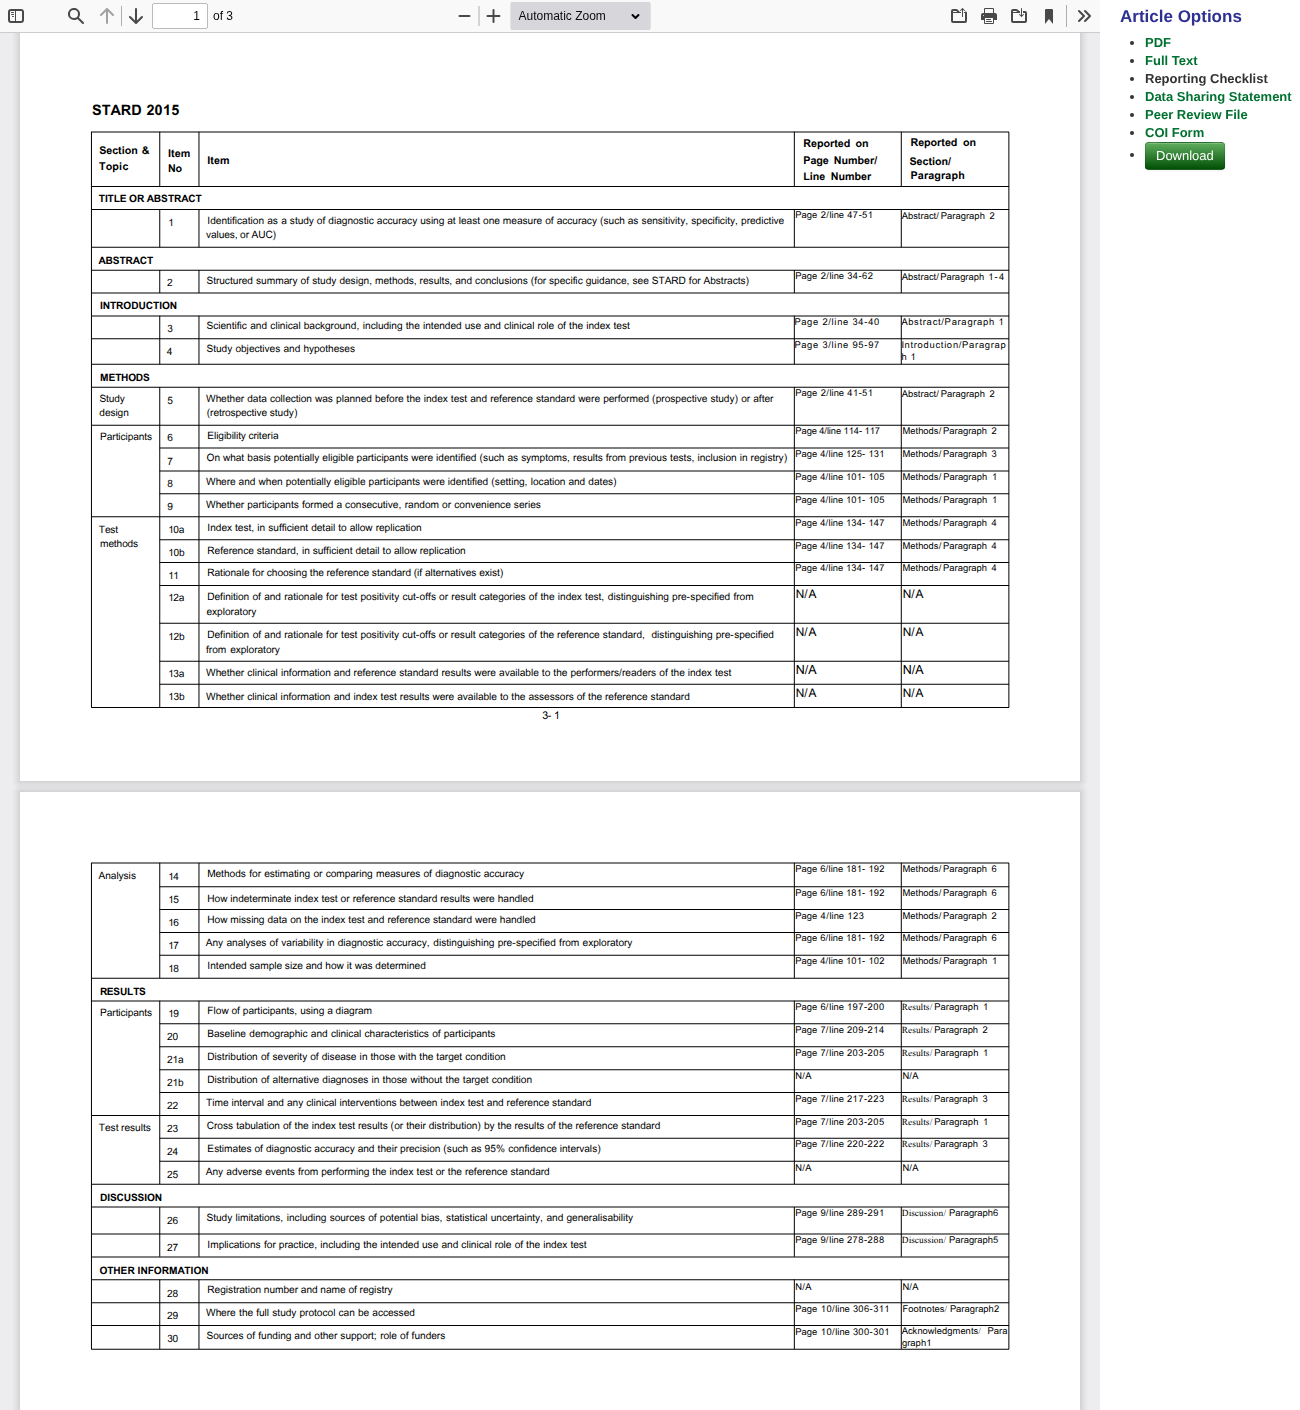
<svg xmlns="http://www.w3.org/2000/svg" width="1300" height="1410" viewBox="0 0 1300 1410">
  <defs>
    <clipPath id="clip1"><rect x="1145" y="142" width="80" height="28" rx="4"/></clipPath>
    <linearGradient id="g1" gradientUnits="userSpaceOnUse" x1="1185" y1="143" x2="1185" y2="169"><stop offset="0" stop-color="#60ad5e"/><stop offset="1" stop-color="#005005"/></linearGradient>
  </defs>
  <rect width="100%" height="100%" fill="#fff"/>
  <image x="0" y="0" width="1100" height="1410" href="img/1.png"/>
  <circle cx="1132" cy="43" r="2" fill="#333"/>
  <circle cx="1132" cy="61" r="2" fill="#333"/>
  <circle cx="1132" cy="79" r="2" fill="#333"/>
  <circle cx="1132" cy="97" r="2" fill="#333"/>
  <circle cx="1132" cy="115" r="2" fill="#333"/>
  <circle cx="1132" cy="133" r="2" fill="#333"/>
  <circle cx="1132" cy="155" r="2" fill="#333"/>
  <rect x="1145" y="143" width="80" height="28" rx="4" fill="#0000000d" filter="blur(1px)"/>
  <rect x="1145" y="142" width="80" height="28" rx="4" fill="#2e7d32"/>
  <g clip-path="url(#clip1)">
    <path d="M1145 143h80v26H1145z" fill="url(#g1)"/>
  </g>
  <path d="M1149 144H1221C1223 144 1224 145 1224 147C1224 140 1213 143 1209 143H1161C1157 143 1146 140 1146 147C1146 145 1147 144 1149 144Z" fill="#ffffff33"/>
  <path d="M1223.5 168.5C1223 169 1222 169.5 1221 169.5H1149C1148 169.5 1147 169 1146.5 168.5" fill="none" stroke="#00000040"/>
  <path d="M1146.5 168.5C1144.5 166 1145.5 158.5 1145.5 156C1145.5 140 1143.5 142.5 1161 142.5H1209C1228 142.5 1224.5 140.5 1224.5 159.5C1224.5 162 1225.5 166.5 1223.5 168.5" fill="none" stroke="#0000001a"/>
  <text x="1120" y="22" font-family="Liberation Sans" font-size="17" font-weight="bold" fill="#2e3092">Article Options</text>
  <g font-family="Liberation Sans" font-size="13" font-weight="bold" fill="#007130">
    <text x="1145" y="47">PDF</text>
    <text x="1145" y="65">Full Text</text>
  </g>
  <text x="1145" y="83" font-family="Liberation Sans" font-size="13" font-weight="bold" fill="#333">Reporting Checklist</text>
  <g font-family="Liberation Sans" font-size="13" font-weight="bold" fill="#007130">
    <text x="1145" y="101">Data Sharing Statement</text>
    <text x="1145" y="119">Peer Review File</text>
    <text x="1145" y="137">COI Form</text>
  </g>
  <text x="1156" y="160" font-family="Liberation Sans" font-size="13" fill="#fff">Download</text>
</svg>
